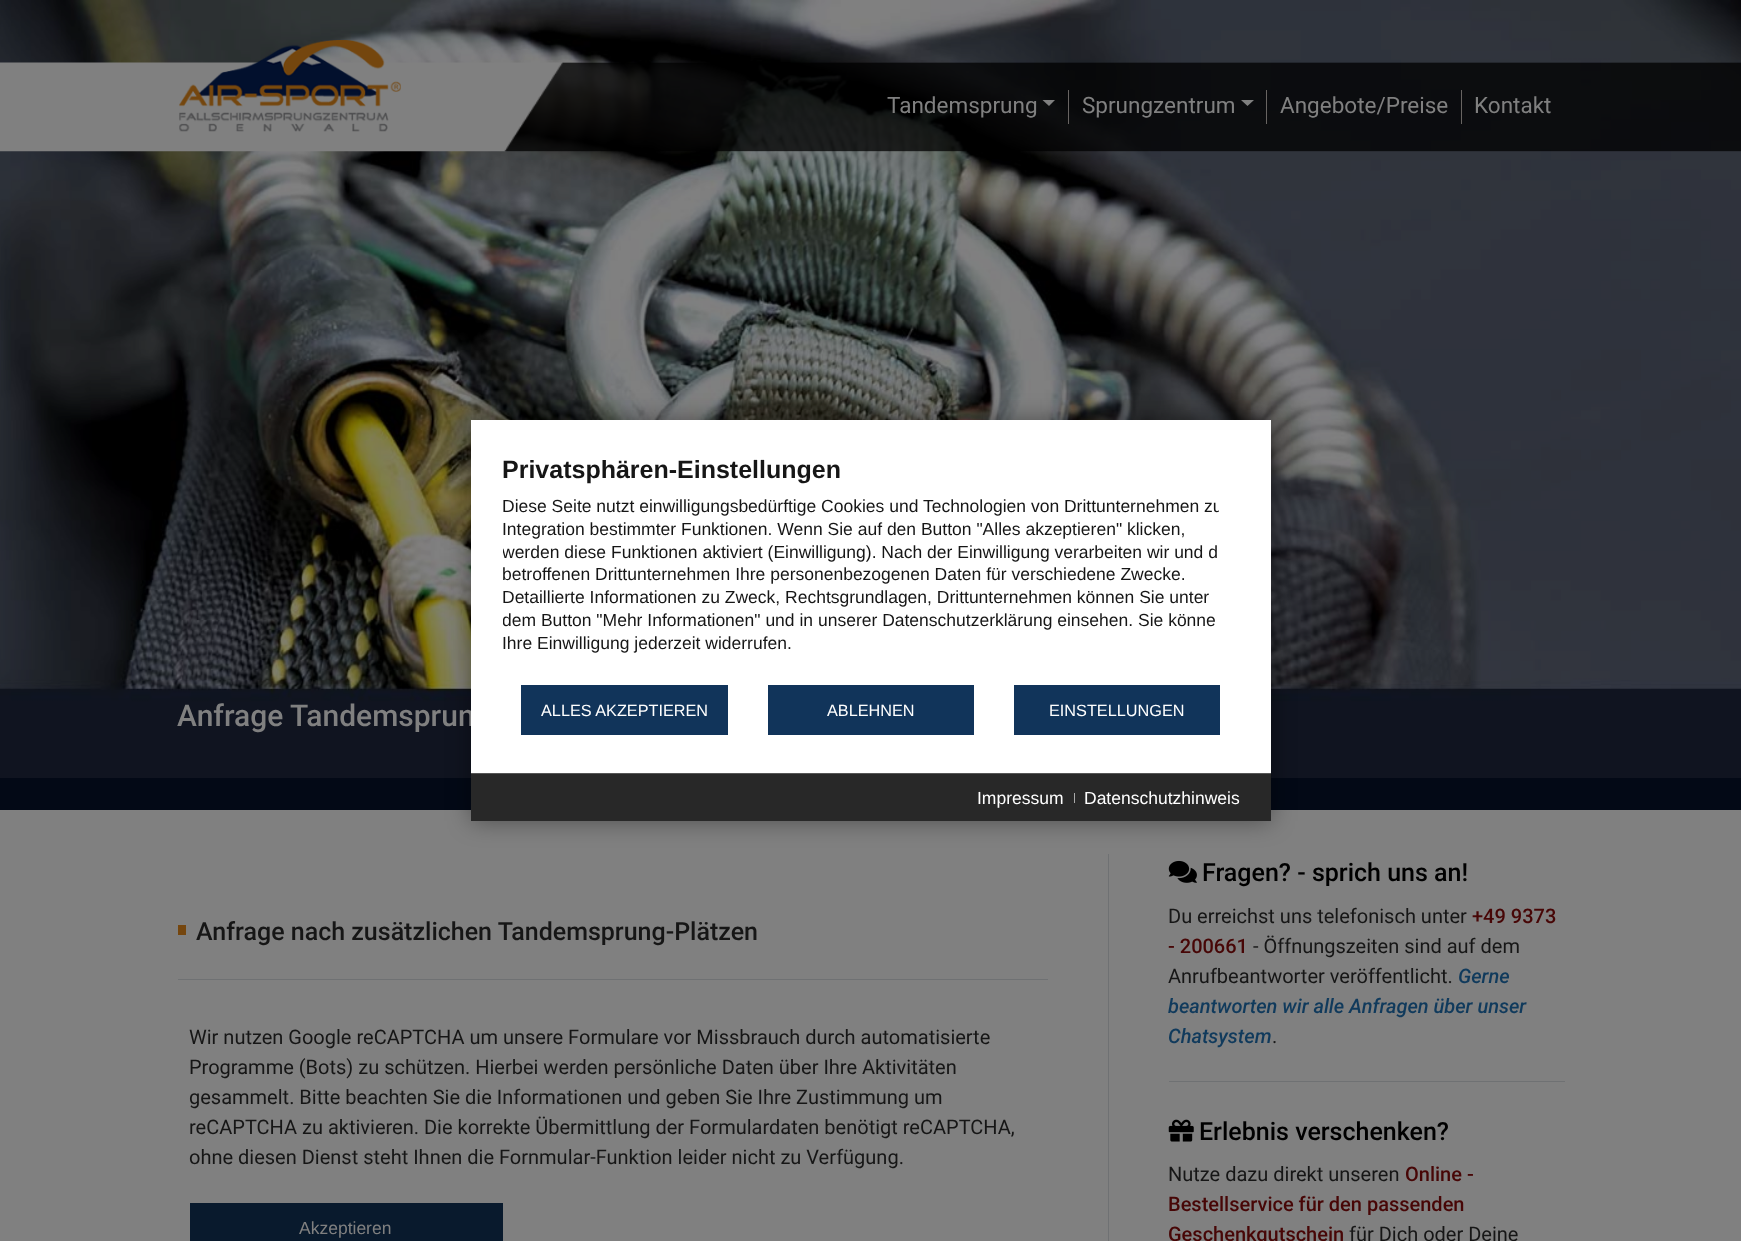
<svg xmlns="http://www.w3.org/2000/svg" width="1741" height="1241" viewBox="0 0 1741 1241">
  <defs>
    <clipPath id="clip1"><path d="M503 458h737v221H503z"/></clipPath>
  </defs>
  <rect width="100%" height="100%" fill="#808080"/>
  <image x="0" y="0" width="1741" height="778" href="img/1.png"/>
  <path d="M504 63h1237v88H504z" fill="#00000080"/>
  <image x="0" y="62" width="1741" height="90" href="img/2.png"/>
  <image x="179" y="40" width="222" height="92" href="img/3.png"/>
  <path d="M1068 90h1v34H1068z" fill="#686462"/>
  <path d="M1042.5 100H1055L1049 106Z" fill="#808080"/>
  <path d="M1266 90h1v34H1266z" fill="#686462"/>
  <path d="M1241 100H1254L1247.5 106Z" fill="#808080"/>
  <path d="M1461 90h1v34H1461z" fill="#686462"/>
  <path d="M0 778h1741v32H0z" fill="#030916"/>
  <path d="M1108 854h1v387H1108z" fill="#6f7173"/>
  <path d="M471 420h800v401H471z" fill="#00000066" filter="blur(12.5px)"/>
  <path d="M471 773h800v1H471z" fill="#565656"/>
  <path d="M471 774h800v47H471z" fill="#282828"/>
  <path d="M1074 793h1v10H1074z" fill="#a9a9a9"/>
  <path d="M178 925h8v10H178z" fill="#75460e"/>
  <path d="M178 979h870v1H178z" fill="#6f7173"/>
  <path d="M190 1203h313v38H190z" fill="#091a2d"/>
  <image x="1168" y="860" width="29" height="23" href="img/4.png"/>
  <path d="M1169 1081h396v1H1169z" fill="#6f7173"/>
  <image x="1168" y="1119" width="26" height="23" href="img/5.png"/>
  <g font-family="Roboto" font-size="22.5" fill="#808080">
    <text x="887" y="113">Tandemsprung</text>
    <text x="1082" y="113">Sprungzentrum</text>
    <text x="1280" y="113">Angebote/Preise</text>
    <text x="1474" y="113">Kontakt</text>
  </g>
  <g font-family="Liberation Sans" font-size="17.5" fill="#fff">
    <text x="977" y="804">Impressum</text>
    <text x="1084" y="804">Datenschutzhinweis</text>
  </g>
  <text x="177" y="726" font-family="Roboto" font-size="30" font-weight="500" fill="#808080">Anfrage Tandemsprun</text>
  <path d="M471 420h800v353H471z" fill="#fff"/>
  <text x="502" y="512" font-family="Liberation Sans" font-size="17.5" fill="#161616">Diese Seite nutzt einwilligungsbedürftige Cookies und Technologien von Drittunternehmen zu</text>
  <path d="M1219 502h3v10H1219z" fill="#fff"/>
  <text x="502" y="649" font-family="Liberation Sans" font-size="17.5" fill="#161616">Ihre Einwilligung jederzeit widerrufen.</text>
  <g clip-path="url(#clip1)">
    <text x="502" y="626" font-family="Liberation Sans" font-size="17.5" fill="#161616">dem Button "Mehr Informationen" und in unserer Datenschutzerklärung einsehen. Sie könne</text>
  </g>
  <g font-family="Liberation Sans" font-size="17.5" fill="#161616">
    <text x="502" y="603">Detaillierte Informationen zu Zweck, Rechtsgrundlagen, Drittunternehmen können Sie unter</text>
    <text x="502" y="580">betroffenen Drittunternehmen Ihre personenbezogenen Daten für verschiedene Zwecke.</text>
  </g>
  <g clip-path="url(#clip1)">
    <text x="502" y="558" font-family="Liberation Sans" font-size="17.5" fill="#161616">werden diese Funktionen aktiviert (Einwilligung). Nach der Einwilligung verarbeiten wir und d</text>
  </g>
  <text x="502" y="535" font-family="Liberation Sans" font-size="17.5" fill="#161616">Integration bestimmter Funktionen. Wenn Sie auf den Button "Alles akzeptieren" klicken,</text>
  <text x="502" y="478" font-family="Liberation Sans" font-size="25" font-weight="bold" fill="#161616">Privatsphären-Einstellungen</text>
  <path d="M1014 685h206v50H1014z" fill="#11345a"/>
  <text x="1049" y="716" font-family="Liberation Sans" font-size="16.25" fill="#fff">EINSTELLUNGEN</text>
  <path d="M768 685h206v50H768z" fill="#11345a"/>
  <text x="827" y="716" font-family="Liberation Sans" font-size="16.25" fill="#fff">ABLEHNEN</text>
  <path d="M521 685h207v50H521z" fill="#11345a"/>
  <text x="541" y="716" font-family="Liberation Sans" font-size="16.25" fill="#fff">ALLES AKZEPTIEREN</text>
  <text x="196" y="940" font-family="Roboto" font-size="25" font-weight="500" fill="#161616">Anfrage nach zusätzlichen Tandemsprung-Plätzen</text>
  <g font-family="Roboto" font-size="20" fill="#161616">
    <text x="189" y="1044">Wir nutzen Google reCAPTCHA um unsere Formulare vor Missbrauch durch automatisierte</text>
    <text x="189" y="1074">Programme (Bots) zu schützen. Hierbei werden persönliche Daten über Ihre Aktivitäten</text>
    <text x="189" y="1104">gesammelt. Bitte beachten Sie die Informationen und geben Sie Ihre Zustimmung um</text>
    <text x="189" y="1134">reCAPTCHA zu aktivieren. Die korrekte Übermittlung der Formulardaten benötigt reCAPTCHA,</text>
    <text x="189" y="1164">ohne diesen Dienst steht Ihnen die Fornmular-Funktion leider nicht zu Verfügung.</text>
  </g>
  <text x="299" y="1234" font-family="Liberation Sans" font-size="17.5" fill="#808080">Akzeptieren</text>
  <text x="1202" y="881" font-family="Roboto" font-size="25" font-weight="500" fill="#000">Fragen? - sprich uns an!</text>
  <text x="1168" y="923" font-family="Roboto" font-size="20" fill="#161616">Du erreichst uns telefonisch unter</text>
  <g font-family="Roboto" font-size="20" font-weight="500" fill="#470606">
    <text x="1472" y="923">+49 9373</text>
    <text x="1168" y="953">- 200661</text>
  </g>
  <g font-family="Roboto" font-size="20" fill="#161616">
    <text x="1253" y="953">- Öffnungszeiten sind auf dem</text>
    <text x="1168" y="983">Anrufbeantworter veröffentlicht.</text>
  </g>
  <g font-family="Roboto" font-size="20" font-weight="500" font-style="italic" fill="#103a5c">
    <text x="1458" y="983">Gerne</text>
    <text x="1168" y="1013">beantworten wir alle Anfragen über unser</text>
    <text x="1168" y="1043">Chatsystem</text>
  </g>
  <text x="1272" y="1043" font-family="Roboto" font-size="20" fill="#161616">.</text>
  <text x="1199" y="1140" font-family="Roboto" font-size="25" font-weight="500" fill="#000">Erlebnis verschenken?</text>
  <text x="1168" y="1181" font-family="Roboto" font-size="20" fill="#161616">Nutze dazu direkt unseren</text>
  <g font-family="Roboto" font-size="20" font-weight="500" fill="#470606">
    <text x="1405" y="1181">Online -</text>
    <text x="1168" y="1211">Bestellservice für den passenden</text>
    <text x="1168" y="1241">Geschenkgutschein</text>
  </g>
  <text x="1349" y="1241" font-family="Roboto" font-size="20" fill="#161616">für Dich oder Deine</text>
</svg>
